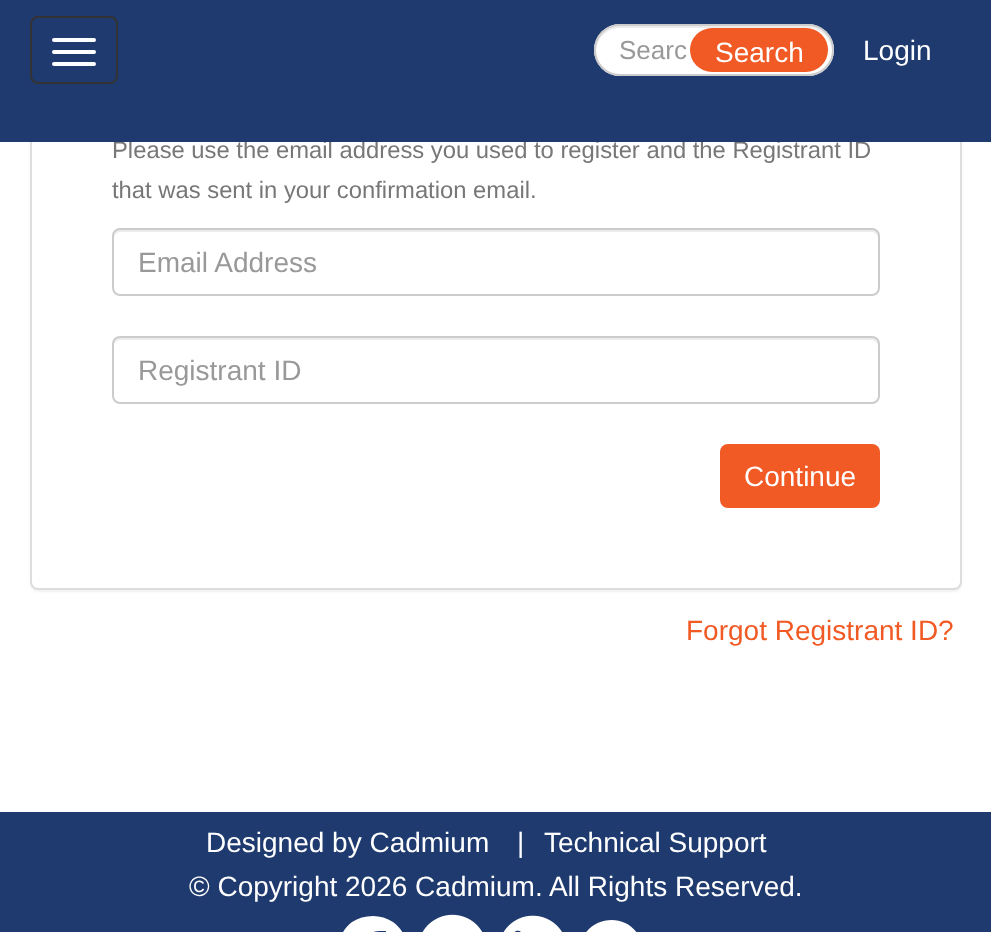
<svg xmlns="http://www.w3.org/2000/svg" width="991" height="932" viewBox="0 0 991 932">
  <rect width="100%" height="100%" fill="#fff"/>
  <rect x="30" y="-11" width="932" height="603" rx="8" fill="#0000000d" filter="blur(1px)"/>
  <rect x="31" y="-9" width="930" height="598" rx="7" fill="#fff" stroke="#ddd" stroke-width="2"/>
  <path d="M120 232H872C875 232 878 235 878 238V236C878 233 875 230 872 230H120C117 230 114 233 114 236V238C114 235 117 232 120 232Z" fill="#ececec"/>
  <rect x="113" y="229" width="766" height="66" rx="7" fill="none" stroke="#ccc" stroke-width="2"/>
  <path d="M120 340H872C875 340 878 343 878 346V344C878 341 875 338 872 338H120C117 338 114 341 114 344V346C114 343 117 340 120 340Z" fill="#ececec"/>
  <rect x="113" y="337" width="766" height="66" rx="7" fill="none" stroke="#ccc" stroke-width="2"/>
  <rect x="720" y="444" width="160" height="64" rx="8" fill="#f15a24"/>
  <path d="M0 812h991v120H0z" fill="#1f3a6e"/>
  <path d="M373 916C380 916 387 918 393 922C420 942 406 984 373 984C340 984 326 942 352 922C358 918 365 916 373 916ZM386 931C374 931 369 930 369 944H362V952H369V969H377V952H384V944H377C377 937 380 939 386 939Z" fill="#fff"/>
  <image x="422" y="914" width="61" height="18" href="img/1.png"/>
  <image x="503" y="915" width="59" height="17" href="img/2.png"/>
  <path d="M639 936C642 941 644 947 643 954C641 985 600 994 584 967C581 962 580 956 580 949C582 918 624 909 639 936Z" fill="#fff"/>
  <text x="112" y="158" font-family="Liberation Sans" font-size="23.8" fill="#777">Please use the email address you used to register and the Registrant ID</text>
  <path d="M0 0h991v142H0z" fill="#1f3a6e"/>
  <rect x="594" y="24" width="240" height="52" rx="26" fill="#fff"/>
  <path d="M620 28H808C821 28 831 38 832 51V50C832 37 821 26 808 26H620C607 26 596 37 596 50V51C597 38 607 28 620 28Z" fill="#ececec"/>
  <rect x="595" y="25" width="238" height="50" rx="25" fill="none" stroke="#ccc" stroke-width="2"/>
  <rect x="690" y="28" width="138" height="44" rx="22" fill="#f15a24"/>
  <text x="715" y="62" font-family="Liberation Sans" font-size="28" fill="#fff">Search</text>
  <text x="619" y="59" font-family="Liberation Sans" font-size="26" fill="#999">Searc</text>
  <rect x="31" y="17" width="86" height="66" rx="7" fill="none" stroke="#333" stroke-width="2"/>
  <rect x="52" y="62" width="44" height="4" rx="2" fill="#fff"/>
  <rect x="52" y="50" width="44" height="4" rx="2" fill="#fff"/>
  <rect x="52" y="38" width="44" height="4" rx="2" fill="#fff"/>
  <text x="863" y="60" font-family="Liberation Sans" font-size="28" fill="#fff">Login</text>
  <text x="112" y="198" font-family="Liberation Sans" font-size="23.8" fill="#777">that was sent in your confirmation email.</text>
  <g font-family="Liberation Sans" font-size="28" fill="#999">
    <text x="138" y="272">Email Address</text>
    <text x="138" y="380">Registrant ID</text>
  </g>
  <text x="744" y="486" font-family="Liberation Sans" font-size="28" fill="#fff">Continue</text>
  <text x="686" y="640" font-family="Liberation Sans" font-size="28" fill="#f15a24">Forgot Registrant ID?</text>
  <g font-family="Liberation Sans" font-size="28" fill="#fff">
    <text x="206" y="852">Designed by Cadmium</text>
    <text x="517" y="852">|</text>
    <text x="544" y="852">Technical Support</text>
    <text x="189" y="896">© Copyright 2026 Cadmium. All Rights Reserved.</text>
  </g>
</svg>
